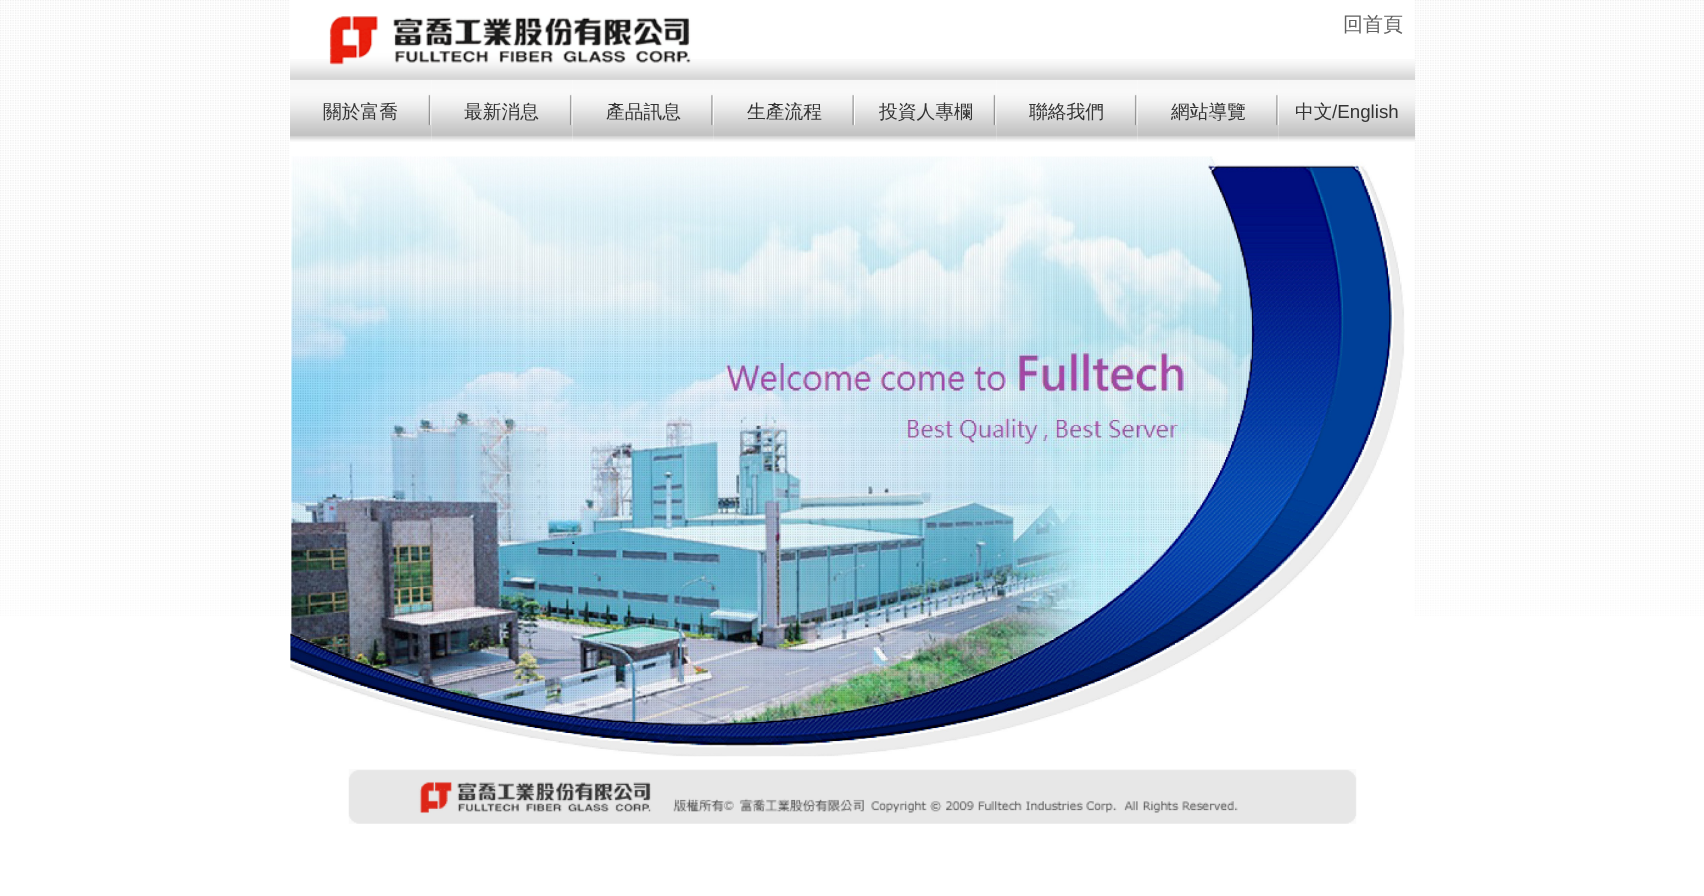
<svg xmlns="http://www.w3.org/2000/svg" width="1704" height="896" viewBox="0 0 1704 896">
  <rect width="100%" height="100%" fill="#fff"/>
  <image x="0" y="0" width="1704" height="616" href="img/1.png"/>
  <path d="M290 0h1124v616H290z" fill="#fff"/>
  <image x="290" y="59" width="1125" height="21" href="img/2.png"/>
  <image x="329" y="16" width="362" height="49" href="img/3.png"/>
  <image x="290" y="80" width="142" height="62" href="img/4.png"/>
  <image x="431" y="80" width="142" height="62" href="img/5.png"/>
  <image x="572" y="80" width="142" height="62" href="img/6.png"/>
  <image x="713" y="80" width="142" height="62" href="img/7.png"/>
  <image x="855" y="80" width="142" height="62" href="img/4.png"/>
  <image x="996" y="80" width="142" height="62" href="img/5.png"/>
  <image x="1137" y="80" width="142" height="62" href="img/8.png"/>
  <image x="1278" y="80" width="137" height="62" href="img/9.png"/>
  <image x="290" y="156" width="1115" height="601" href="img/10.png"/>
  <image x="348" y="769" width="1009" height="55" href="img/11.png"/>
  <text x="1343" y="31" font-family="WenQuanYi Zen Hei" font-size="20" font-weight="500" fill="#626262">回首頁</text>
  <g font-family="WenQuanYi Zen Hei" font-size="18.75" font-weight="500" fill="#333">
    <text x="323" y="118">關於富喬</text>
    <text x="464" y="118">最新消息</text>
    <text x="606" y="118">產品訊息</text>
    <text x="747" y="118">生產流程</text>
    <text x="879" y="118">投資人專欄</text>
    <text x="1029" y="118">聯絡我們</text>
    <text x="1171" y="118">網站導覽</text>
    <text x="1295" y="118">中文</text>
  </g>
  <text x="1332" y="118" font-family="Liberation Sans" font-size="18.75" fill="#333">/English</text>
</svg>
